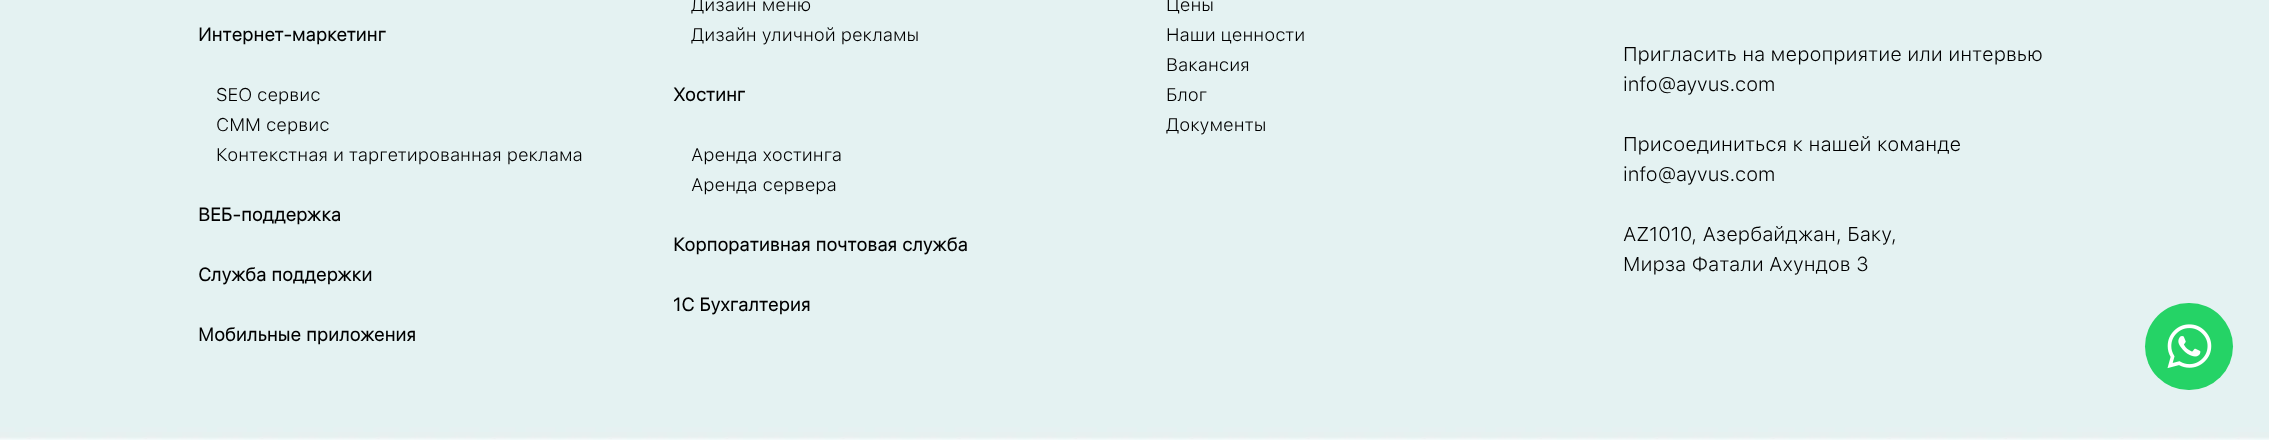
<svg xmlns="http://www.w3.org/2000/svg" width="2269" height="440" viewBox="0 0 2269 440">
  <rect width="100%" height="100%" fill="#fff"/>
  <image x="0" y="0" width="2269" height="440" href="img/1.png"/>
  <rect x="2145" y="303" width="88" height="87" rx="43.5" fill="#25d366"/>
  <image x="2167" y="324" width="45" height="45" href="img/2.png"/>
  <text x="198" y="41" font-family="SF Pro Text" font-size="18.3" font-weight="bold" fill="#000">Интернет-маркетинг</text>
  <g font-family="SF Pro Text" font-size="18.3" font-weight="300" fill="#000">
    <text x="216" y="101">SEO сервис</text>
    <text x="216" y="131">СММ сервис</text>
    <text x="216" y="161">Контекстная и таргетированная реклама</text>
  </g>
  <g font-family="SF Pro Text" font-size="18.3" font-weight="bold" fill="#000">
    <text x="198" y="221">ВЕБ-поддержка</text>
    <text x="198" y="281">Служба поддержки</text>
    <text x="198" y="341">Мобильные приложения</text>
  </g>
  <g font-family="SF Pro Text" font-size="18.3" font-weight="300" fill="#000">
    <text x="691" y="11">Дизайн меню</text>
    <text x="691" y="41">Дизайн уличной рекламы</text>
  </g>
  <text x="673" y="101" font-family="SF Pro Text" font-size="18.3" font-weight="bold" fill="#000">Хостинг</text>
  <g font-family="SF Pro Text" font-size="18.3" font-weight="300" fill="#000">
    <text x="691" y="161">Аренда хостинга</text>
    <text x="691" y="191">Аренда сервера</text>
  </g>
  <g font-family="SF Pro Text" font-size="18.3" font-weight="bold" fill="#000">
    <text x="673" y="251">Корпоративная почтовая служба</text>
    <text x="673" y="311">1С Бухгалтерия</text>
  </g>
  <g font-family="SF Pro Text" font-size="18.3" font-weight="300" fill="#000">
    <text x="1166" y="11">Цены</text>
    <text x="1166" y="41">Наши ценности</text>
    <text x="1166" y="71">Вакансия</text>
    <text x="1166" y="101">Блог</text>
    <text x="1166" y="131">Документы</text>
  </g>
  <g font-family="SF Pro Text" font-size="20" font-weight="300" fill="#000">
    <text x="1623" y="61">Пригласить на мероприятие или интервью</text>
    <text x="1623" y="91">info@ayvus.com</text>
    <text x="1623" y="151">Присоединиться к нашей команде</text>
    <text x="1623" y="181">info@ayvus.com</text>
    <text x="1623" y="241">AZ1010, Азербайджан, Баку,</text>
    <text x="1623" y="271">Мирза Фатали Ахундов 3</text>
  </g>
</svg>
